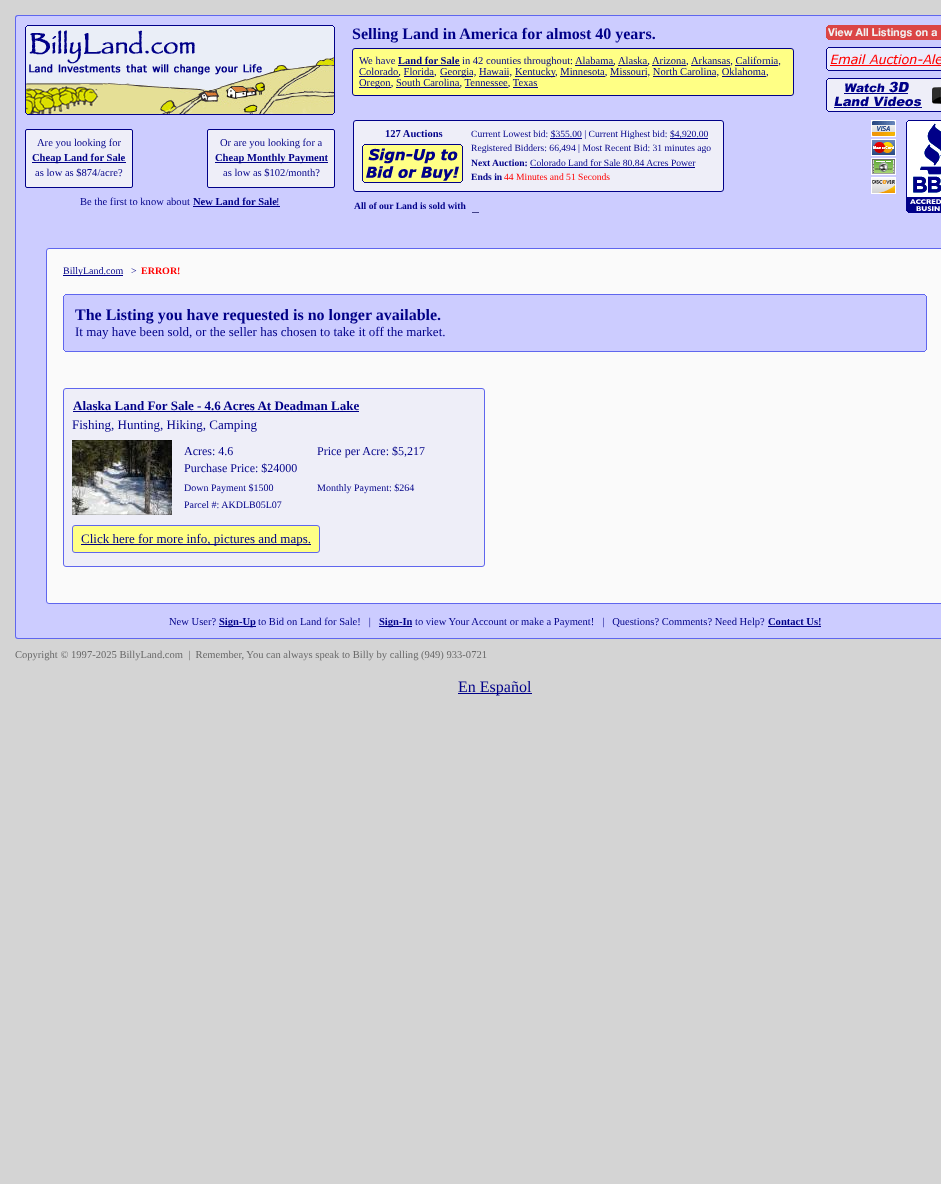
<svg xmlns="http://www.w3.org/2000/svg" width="941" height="1184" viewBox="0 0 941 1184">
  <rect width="100%" height="100%" fill="#d4d4d4"/>
  <path d="M18 15H941C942.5 15 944 16.5 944 18V233H15V18C15 16.5 16.5 15 18 15Z" fill="#ccf"/>
  <path d="M18 15H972C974 15 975 16 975 18V233H15V18C15 16 16 15 18 15ZM18 16H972C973 16 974 17 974 18V233H16V18C16 17 17 16 18 16Z" fill="#5f66ee" fill-rule="evenodd"/>
  <image x="25" y="25" width="310" height="90" href="img/1.png"/>
  <rect x="25.5" y="129.5" width="107" height="58" rx="1.5" fill="#eeeef8" stroke="#008"/>
  <path d="M32 162h94v1H32z" fill="#008"/>
  <rect x="207.5" y="129.5" width="127" height="58" rx="1.5" fill="#eeeef8" stroke="#008"/>
  <path d="M215 162h113v1H215z" fill="#008"/>
  <path d="M193 206h87v1H193z" fill="#008"/>
  <rect x="352.5" y="48.5" width="441" height="47" rx="2.5" fill="#ffff85" stroke="#008"/>
  <path d="M398 65h62v1H398z" fill="#008"/>
  <path d="M575 65h39v1H575z" fill="#008"/>
  <path d="M618 65h30v1H618z" fill="#008"/>
  <path d="M652 65h34v1H652z" fill="#008"/>
  <path d="M691 65h39v1H691z" fill="#008"/>
  <path d="M735 65h43v1H735z" fill="#008"/>
  <path d="M359 76h40v1H359z" fill="#008"/>
  <path d="M404 76h30v1H404z" fill="#008"/>
  <path d="M440 76h33v1H440z" fill="#008"/>
  <path d="M479 76h30v1H479z" fill="#008"/>
  <path d="M515 76h40v1H515z" fill="#008"/>
  <path d="M560 76h45v1H560z" fill="#008"/>
  <path d="M610 76h37v1H610z" fill="#008"/>
  <path d="M653 76h63v1H653z" fill="#008"/>
  <path d="M722 76h44v1H722z" fill="#008"/>
  <path d="M359 87h32v1H359z" fill="#008"/>
  <path d="M396 87h64v1H396z" fill="#008"/>
  <path d="M465 87h43v1H465z" fill="#008"/>
  <path d="M513 87h25v1H513z" fill="#008"/>
  <image x="826" y="25" width="115" height="15" href="img/2.png"/>
  <image x="826" y="47" width="115" height="24" href="img/3.png"/>
  <image x="826" y="78" width="115" height="34" href="img/4.png"/>
  <rect x="353.5" y="120.5" width="370" height="71" rx="2.5" fill="#eeeef8" stroke="#008"/>
  <image x="362" y="144" width="101" height="39" href="img/5.png"/>
  <path d="M670 138h38v1H670z" fill="#008"/>
  <path d="M550 138h32v1H550z" fill="#008"/>
  <path d="M530 167h165v1H530z" fill="#008"/>
  <path d="M472 212h7v1H472z" fill="#414188"/>
  <image x="871" y="120" width="70" height="93" href="img/6.png"/>
  <path d="M16 233h925v372H16z" fill="#ccf"/>
  <path d="M15 233h1v372H15z" fill="#5f66ee"/>
  <rect x="46.5" y="248.5" width="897" height="355" rx="2.5" fill="#fafafa" stroke="#5f66ee"/>
  <path d="M63 275h60v1H63z" fill="#008"/>
  <path d="M65 294h860v1H65z" fill="#5f66ee"/>
  <path d="M64 295h1v1H64z" fill="#5f66ee"/>
  <path d="M65 295h860v1H65z" fill="#ccf"/>
  <path d="M925 295h1v1H925z" fill="#5f66ee"/>
  <path d="M63 296h1v54H63z" fill="#5f66ee"/>
  <path d="M64 296h862v54H64z" fill="#ccf"/>
  <path d="M926 296h1v54H926z" fill="#5f66ee"/>
  <path d="M64 350h1v1H64z" fill="#5f66ee"/>
  <path d="M65 350h860v1H65z" fill="#ccf"/>
  <path d="M925 350h1v1H925z" fill="#5f66ee"/>
  <path d="M65 351h860v1H65z" fill="#5f66ee"/>
  <rect x="63.5" y="388.5" width="421" height="178" rx="2.5" fill="#eeeef8" stroke="#5f66ee"/>
  <path d="M73 411h286v1H73z" fill="#008"/>
  <image x="72" y="440" width="100" height="75" href="img/7.png"/>
  <rect x="72.5" y="525.5" width="247" height="27" rx="2.5" fill="#ffff85" stroke="#5f66ee"/>
  <path d="M81 544h230v1H81z" fill="#008"/>
  <path d="M15 605H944V636C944 637.5 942.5 639 941 639H18C16.5 639 15 637.5 15 636Z" fill="#ccf"/>
  <path d="M15 605H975V636C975 638 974 639 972 639H18C16 639 15 638 15 636ZM16 605H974V636C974 637 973 638 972 638H18C17 638 16 637 16 636Z" fill="#5f66ee" fill-rule="evenodd"/>
  <path d="M219 626h37v1H219z" fill="#008"/>
  <path d="M379 626h33v1H379z" fill="#008"/>
  <path d="M768 626h53v1H768z" fill="#008"/>
  <path d="M458 693h74v1H458z" fill="#008"/>
  <text x="37" y="146" font-family="Liberation Serif" font-size="10.55" fill="#008">Are you looking for</text>
  <text x="32" y="161" font-family="Liberation Serif" font-size="10.55" font-weight="bold" fill="#008">Cheap Land for Sale</text>
  <g font-family="Liberation Serif" font-size="10.55" fill="#008">
    <text x="35" y="176">as low as $874/acre?</text>
    <text x="220" y="146">Or are you looking for a</text>
  </g>
  <text x="215" y="161" font-family="Liberation Serif" font-size="10.55" font-weight="bold" fill="#008">Cheap Monthly Payment</text>
  <g font-family="Liberation Serif" font-size="10.55" fill="#008">
    <text x="223" y="176">as low as $102/month?</text>
    <text x="80" y="205">Be the first to know about</text>
  </g>
  <text x="193" y="205" font-family="Liberation Serif" font-size="10.55" font-weight="bold" fill="#008">New Land for Sale</text>
  <text x="276" y="205" font-family="Liberation Serif" font-size="10.55" fill="#008">!</text>
  <text x="352" y="39" font-family="Liberation Serif" font-size="16" font-weight="bold" fill="#008">Selling Land in America for almost 40 years.</text>
  <text x="359" y="64" font-family="Liberation Serif" font-size="10.55" fill="#008">We have</text>
  <text x="398" y="64" font-family="Liberation Serif" font-size="10.55" font-weight="bold" fill="#008">Land for Sale</text>
  <g font-family="Liberation Serif" font-size="10.55" fill="#008">
    <text x="462" y="64">in 42 counties throughout:</text>
    <text x="575" y="64">Alabama,</text>
    <text x="618" y="64">Alaska,</text>
    <text x="652" y="64">Arizona,</text>
    <text x="691" y="64">Arkansas, California,</text>
    <text x="359" y="75">Colorado, Florida,</text>
    <text x="440" y="75">Georgia, Hawaii,</text>
    <text x="515" y="75">Kentucky</text>
    <text x="555" y="75">, Minnesota, Missouri, North Carolina, Oklahoma</text>
    <text x="766" y="75">,</text>
    <text x="359" y="86">Oregon, South Carolina, Tennessee, Texas</text>
  </g>
  <text x="385" y="137" font-family="Liberation Serif" font-size="10.55" font-weight="bold" fill="#008">127 Auctions</text>
  <g font-family="Liberation Serif" font-size="9.6" fill="#008">
    <text x="471" y="137">Current Lowest bid: $355.00 | Current Highest bid:</text>
    <text x="670" y="137">$4,920.00</text>
    <text x="471" y="151">Registered Bidders: 66,494 | Most Recent Bid: 31 minutes ago</text>
  </g>
  <text x="471" y="166" font-family="Liberation Serif" font-size="9.6" font-weight="bold" fill="#008">Next Auction:</text>
  <text x="530" y="166" font-family="Liberation Serif" font-size="9.6" fill="#008">Colorado Land for Sale 80.84 Acres Power</text>
  <text x="471" y="180" font-family="Liberation Serif" font-size="9.6" font-weight="bold" fill="#008">Ends in</text>
  <text x="504" y="180" font-family="Liberation Serif" font-size="9.6" fill="#f00">44 Minutes and 51 Seconds</text>
  <text x="354" y="209" font-family="Liberation Serif" font-size="9.6" font-weight="bold" fill="#008">All of our Land is sold with</text>
  <g font-family="Liberation Serif" font-size="10" fill="#008">
    <text x="63" y="274">BillyLand.com</text>
    <text x="131" y="274">&gt;</text>
  </g>
  <text x="141" y="274" font-family="Liberation Serif" font-size="10" font-weight="bold" fill="#f00">ERROR!</text>
  <text x="75" y="320" font-family="Liberation Serif" font-size="16" font-weight="bold" fill="#008">The Listing you have requested is no longer available.</text>
  <text x="75" y="336" font-family="Liberation Serif" font-size="13" fill="#008">It may have been sold, or the seller has chosen to take it off the market.</text>
  <text x="73" y="410" font-family="Liberation Serif" font-size="13" font-weight="bold" fill="#008">Alaska Land For Sale - 4.6 Acres At Deadman Lake</text>
  <text x="72" y="429" font-family="Liberation Serif" font-size="13" fill="#008">Fishing, Hunting, Hiking, Camping</text>
  <g font-family="Liberation Serif" font-size="12" fill="#008">
    <text x="184" y="455">Acres: 4.6</text>
    <text x="317" y="455">Price per Acre: $5,217</text>
    <text x="184" y="472">Purchase Price: $24000</text>
  </g>
  <g font-family="Liberation Serif" font-size="10" fill="#008">
    <text x="184" y="491">Down Payment $1500</text>
    <text x="317" y="491">Monthly Payment: $264</text>
    <text x="184" y="508">Parcel #: AKDLB05L07</text>
  </g>
  <text x="81" y="543" font-family="Liberation Serif" font-size="13" fill="#008">Click here for more info, pictures and maps.</text>
  <text x="169" y="625" font-family="Liberation Serif" font-size="10.55" fill="#008">New User?</text>
  <text x="219" y="625" font-family="Liberation Serif" font-size="10.55" font-weight="bold" fill="#008">Sign-Up</text>
  <text x="258" y="625" font-family="Liberation Serif" font-size="10.55" fill="#008" xml:space="preserve">to Bid on Land for Sale!   |</text>
  <text x="379" y="625" font-family="Liberation Serif" font-size="10.55" font-weight="bold" fill="#008">Sign-In</text>
  <text x="415" y="625" font-family="Liberation Serif" font-size="10.55" fill="#008" xml:space="preserve">to view Your Account or make a Payment!   |   Questions? Comments? Need Help?</text>
  <text x="768" y="625" font-family="Liberation Serif" font-size="10.55" font-weight="bold" fill="#008">Contact Us!</text>
  <text x="15" y="658" font-family="Liberation Serif" font-size="10.55" fill="#696969" xml:space="preserve">Copyright © 1997-2025 BillyLand.com  |  Remember, You can always speak to Billy by calling (949) 933-0721</text>
  <text x="458" y="692" font-family="Liberation Serif" font-size="16" fill="#008">En Español</text>
</svg>
